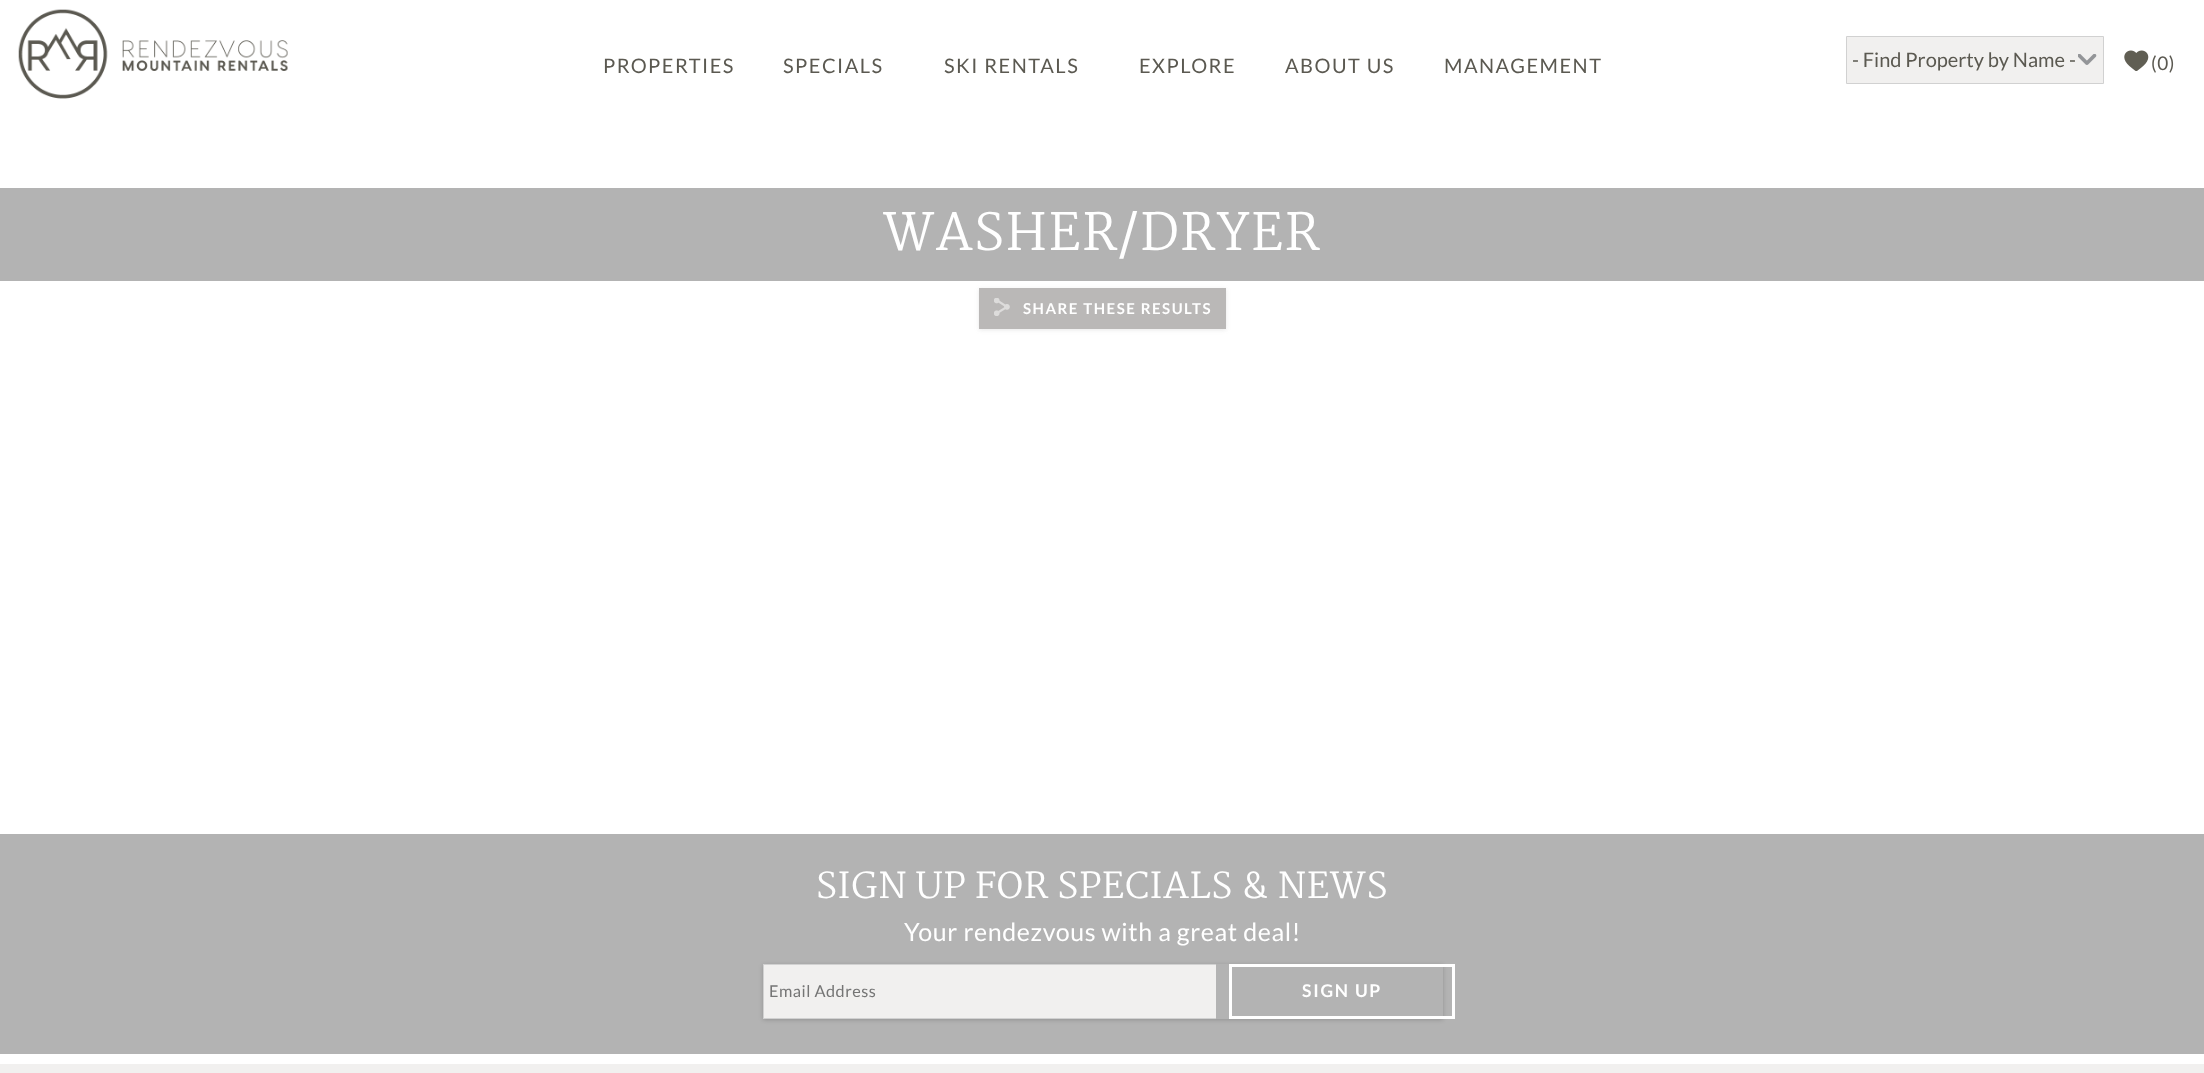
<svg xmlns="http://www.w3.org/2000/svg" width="2204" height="1073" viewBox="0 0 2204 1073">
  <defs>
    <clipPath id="clip1"><path d="M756 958H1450V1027H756ZM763 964H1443V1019H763Z" clip-rule="evenodd"/></clipPath>
  </defs>
  <rect width="100%" height="100%" fill="#fff"/>
  <image x="18" y="9" width="270" height="90" href="img/1.png"/>
  <path d="M1847 37h256v46H1847z" fill="#f1f0ef"/>
  <image x="2078" y="54" width="19" height="11" href="img/2.png"/>
  <path d="M1846.5 36.5h257v47H1846.5z" fill="none" stroke="#d1d1d1"/>
  <image x="2124" y="50" width="25" height="21" href="img/3.png"/>
  <path d="M0 188h2204v93H0z" fill="#b3b3b3"/>
  <path d="M979 289h247v41H979z" fill="#8080802e" filter="blur(2px)"/>
  <path d="M979 288h247v41H979z" fill="#bab8b7"/>
  <image x="994" y="298" width="16" height="18" href="img/4.png"/>
  <path d="M0 834h2204v220H0z" fill="#b3b3b3"/>
  <g clip-path="url(#clip1)">
    <path d="M763 965h680v55H763z" fill="#0000002e" filter="blur(2px)"/>
  </g>
  <path d="M764 965h452v53H764z" fill="#f1f0ef"/>
  <path d="M763 964h453v1H763z" fill="#d1d1d1"/>
  <path d="M763 1018h453v1H763z" fill="#d1d1d1"/>
  <path d="M763 964h1v55H763z" fill="#d1d1d1"/>
  <path d="M1230.5 965.5h223v52H1230.5z" fill="none" stroke="#fff" stroke-width="3"/>
  <path d="M0 1064h2204v9H0z" fill="#f1f0ef"/>
  <g font-family="Lato" font-size="20" letter-spacing="1.5" fill="#5b5951">
    <text x="603" y="73">PROPERTIES</text>
    <text x="783" y="73">SPECIALS</text>
    <text x="944" y="73">SKI RENTALS</text>
    <text x="1139" y="73">EXPLORE</text>
    <text x="1285" y="73">ABOUT US</text>
    <text x="1444" y="73">MANAGEMENT</text>
  </g>
  <text x="1852" y="67" font-family="Lato" font-size="20" fill="#5b5951">- Find Property by Name -</text>
  <text x="2151" y="70" font-family="Lato" font-size="19" letter-spacing="0.5" fill="#5b5951">(0)</text>
  <text x="883" y="250" font-family="Martel" font-size="50" letter-spacing="1.5" fill="#fff">WASHER/DRYER</text>
  <text x="1023" y="314" font-family="Lato" font-size="15" font-weight="bold" letter-spacing="1.5" fill="#fff">SHARE THESE RESULTS</text>
  <text x="816" y="898" font-family="Martel" font-size="35" letter-spacing="0.6" fill="#fff">SIGN UP FOR SPECIALS &amp; NEWS</text>
  <text x="904" y="941" font-family="Lato" font-size="25" letter-spacing="0.6" fill="#fff">Your rendezvous with a great deal!</text>
  <text x="769" y="997" font-family="Lato" font-size="16.25" letter-spacing="0.5" fill="#757575">Email Address</text>
  <text x="1302" y="997" font-family="Lato" font-size="17.5" font-weight="bold" letter-spacing="1.75" fill="#fff">SIGN UP</text>
</svg>
